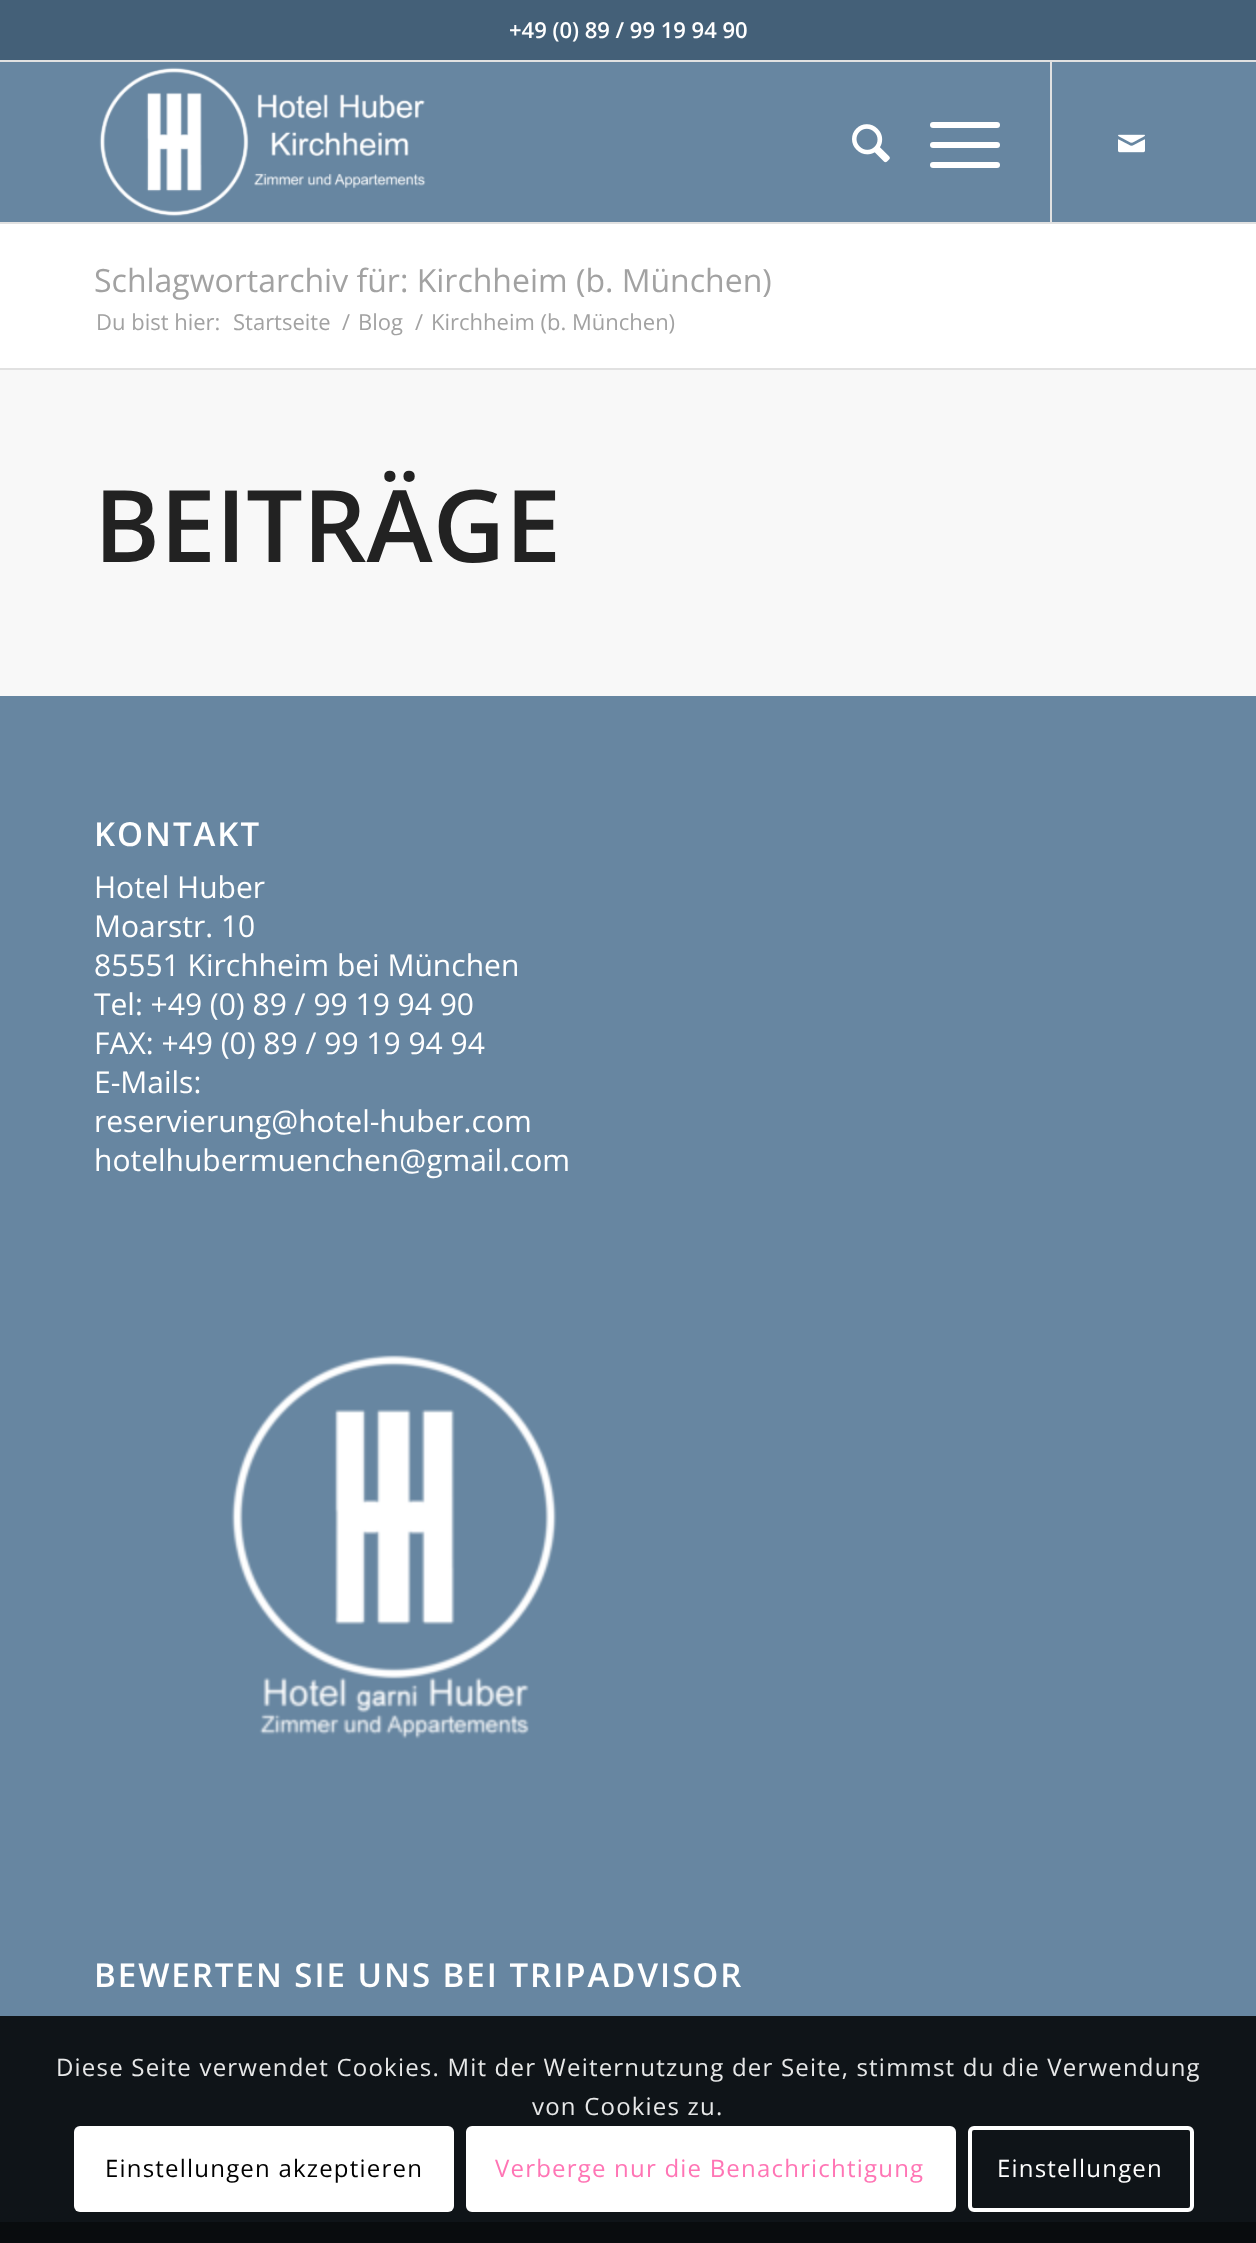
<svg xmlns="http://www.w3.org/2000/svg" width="1256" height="2243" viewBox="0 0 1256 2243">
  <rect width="100%" height="100%" fill="#6786a1"/>
  <path d="M0 0h1256v60H0z" fill="#446078"/>
  <path d="M0 60h1256v2H0z" fill="#e1e1e1"/>
  <path d="M0 222h1256v2H0z" fill="#e1e1e1"/>
  <image x="99" y="67" width="327" height="150" href="img/1.png"/>
  <path d="M1050 62h2v160H1050z" fill="#e1e1e1"/>
  <image x="852" y="124" width="38" height="39" href="img/2.png"/>
  <rect x="930" y="142" width="70" height="6" rx="3" fill="#fff"/>
  <rect x="930" y="122" width="70" height="6" rx="3" fill="#fff"/>
  <rect x="930" y="162" width="70" height="6" rx="3" fill="#fff"/>
  <image x="1118" y="134" width="27" height="19" href="img/3.png"/>
  <path d="M0 2016h1256v206H0z" fill="#0f1418"/>
  <path d="M0 224h1256v144H0z" fill="#fff"/>
  <path d="M0 370h1256v326H0z" fill="#f8f8f8"/>
  <path d="M0 368h1256v2H0z" fill="#e1e1e1"/>
  <image x="231" y="1355" width="326" height="384" href="img/4.png"/>
  <path d="M0 2222h1256v21H0z" fill="#090c0e"/>
  <rect x="74" y="2126" width="380" height="86" rx="6" fill="#fff"/>
  <rect x="468" y="2128" width="486" height="82" rx="4" fill="#fff" stroke="#fff" stroke-width="4"/>
  <rect x="970" y="2128" width="222" height="82" rx="4" fill="none" stroke="#fff" stroke-width="4"/>
  <text x="509" y="38" font-family="Open Sans" font-size="22" font-weight="600" fill="#fff">+49 (0) 89 / 99 19 94 90</text>
  <text x="94" y="292" font-family="Open Sans" font-size="32" fill="#a2a2a2">Schlagwortarchiv für: Kirchheim (b. München)</text>
  <g font-family="Open Sans" font-size="22" fill="#a2a2a2">
    <text x="96" y="330">Du bist hier:</text>
    <text x="233" y="330">Startseite</text>
    <text x="342" y="330">/</text>
    <text x="358" y="330">Blog</text>
    <text x="415" y="330">/</text>
    <text x="431" y="330">Kirchheim (b. München)</text>
  </g>
  <text x="94" y="562" font-family="Open Sans" font-size="100" font-weight="600" fill="#222">BEITRÄGE</text>
  <text x="94" y="846" font-family="Open Sans" font-size="33" font-weight="600" letter-spacing="2" fill="#fff">KONTAKT</text>
  <g font-family="Open Sans" font-size="30" fill="#fff">
    <text x="94" y="898">Hotel Huber</text>
    <text x="94" y="937">Moarstr. 10</text>
    <text x="94" y="976">85551 Kirchheim bei München</text>
    <text x="94" y="1015">Tel: +49 (0) 89 / 99 19 94 90</text>
    <text x="94" y="1054">FAX: +49 (0) 89 / 99 19 94 94</text>
    <text x="94" y="1093">E-Mails:</text>
    <text x="94" y="1132">reservierung@hotel-huber.com</text>
    <text x="94" y="1171">hotelhubermuenchen@gmail.com</text>
  </g>
  <text x="94" y="1987" font-family="Open Sans" font-size="33" font-weight="600" letter-spacing="2" fill="#fff">BEWERTEN SIE UNS BEI TRIPADVISOR</text>
  <g font-family="Open Sans" font-size="24" letter-spacing="1.2" fill="#e7e8e8">
    <text x="56" y="2076">Diese Seite verwendet Cookies. Mit der Weiternutzung der Seite, stimmst du die Verwendung</text>
    <text x="532" y="2115">von Cookies zu.</text>
  </g>
  <text x="105" y="2177" font-family="Open Sans" font-size="24" letter-spacing="1.2" fill="#000">Einstellungen akzeptieren</text>
  <text x="495" y="2177" font-family="Open Sans" font-size="24" letter-spacing="1.2" fill="#ff75b5">Verberge nur die Benachrichtigung</text>
  <text x="997" y="2177" font-family="Open Sans" font-size="24" letter-spacing="1.2" fill="#fff">Einstellungen</text>
</svg>
